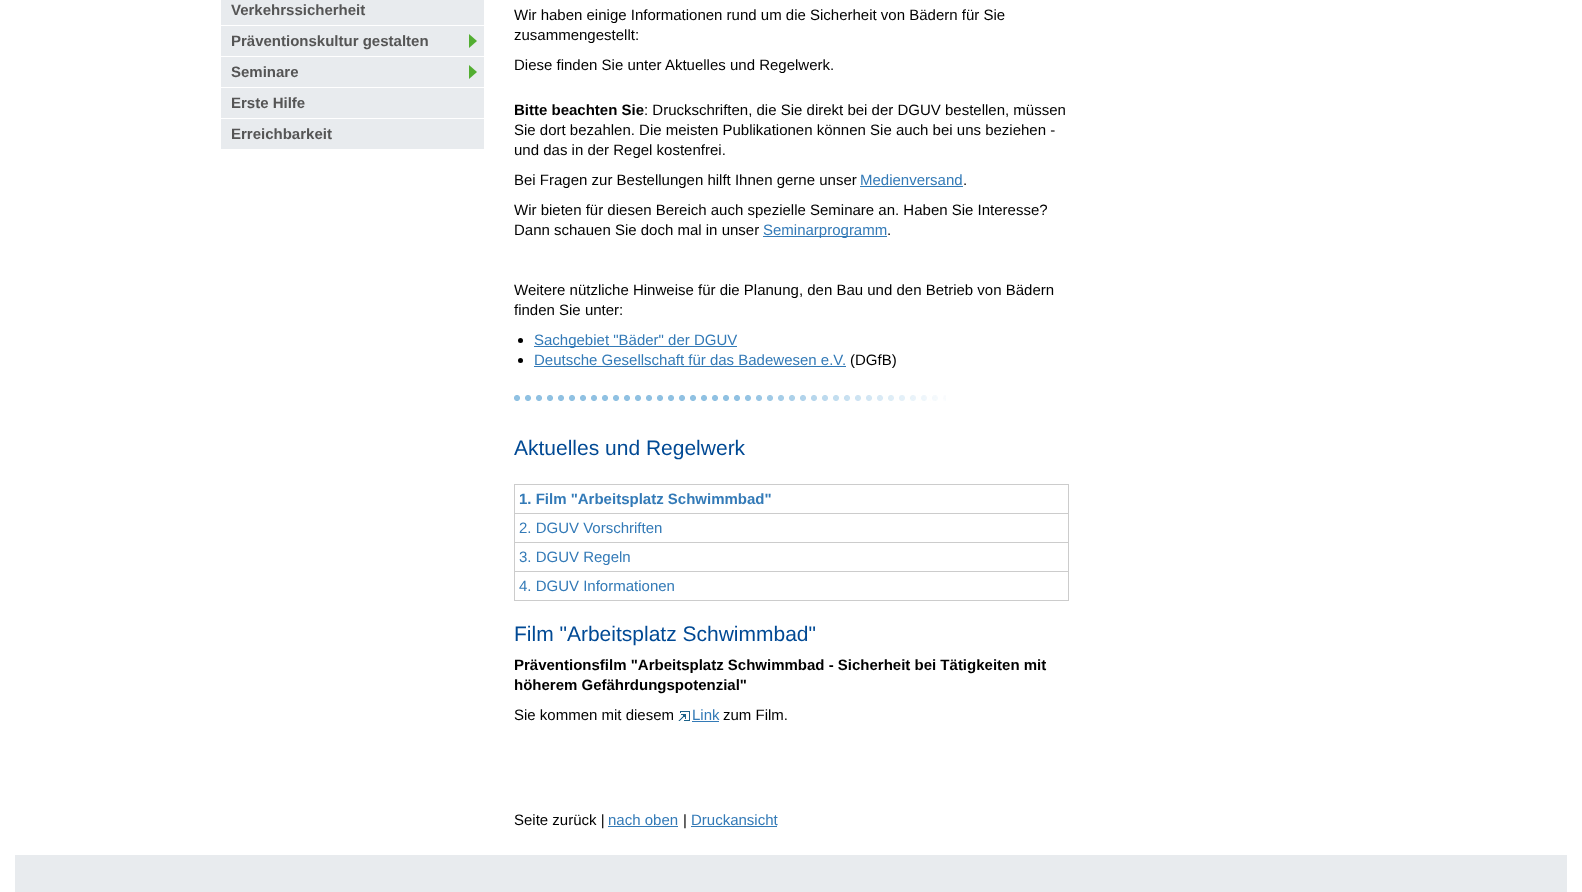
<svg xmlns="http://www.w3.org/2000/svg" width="1582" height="892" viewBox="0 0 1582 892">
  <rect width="100%" height="100%" fill="#fff"/>
  <path d="M221 0h263v149H221z" fill="#e8ebee"/>
  <path d="M221 25h263v1H221z" fill="#fff"/>
  <path d="M221 56h263v1H221z" fill="#fff"/>
  <path d="M469 48V34L477 41Z" fill="#52ae31"/>
  <path d="M221 87h263v1H221z" fill="#fff"/>
  <path d="M469 79V65L477 72Z" fill="#52ae31"/>
  <path d="M221 118h263v1H221z" fill="#fff"/>
  <path d="M860 186h103v1H860z" fill="#337ab7"/>
  <path d="M763 236h124v1H763z" fill="#337ab7"/>
  <circle cx="520.5" cy="340.5" r="2.5" fill="#000"/>
  <path d="M534 346h203v1H534z" fill="#337ab7"/>
  <circle cx="520.5" cy="360.5" r="2.5" fill="#000"/>
  <path d="M534 366h312v1H534z" fill="#337ab7"/>
  <image x="514" y="395" width="432" height="6" href="img/1.png"/>
  <path d="M514 600h555v1H514z" fill="#ccc"/>
  <path d="M514 484h555v1H514z" fill="#ccc"/>
  <path d="M1068 484h1v29H1068z" fill="#ccc"/>
  <path d="M514 484h1v29H514z" fill="#ccc"/>
  <path d="M514 513h555v1H514z" fill="#ccc"/>
  <path d="M1068 513h1v29H1068z" fill="#ccc"/>
  <path d="M514 513h1v29H514z" fill="#ccc"/>
  <path d="M514 542h555v1H514z" fill="#ccc"/>
  <path d="M1068 542h1v29H1068z" fill="#ccc"/>
  <path d="M514 542h1v29H514z" fill="#ccc"/>
  <path d="M514 571h555v1H514z" fill="#ccc"/>
  <path d="M1068 571h1v29H1068z" fill="#ccc"/>
  <path d="M514 571h1v29H514z" fill="#ccc"/>
  <image x="678" y="711" width="12" height="10" href="img/2.png"/>
  <path d="M692 721h27v1H692z" fill="#337ab7"/>
  <path d="M608 826h70v1H608z" fill="#337ab7"/>
  <path d="M691 826h86v1H691z" fill="#337ab7"/>
  <path d="M15 855h1552v37H15z" fill="#e8ebee"/>
  <g font-family="Liberation Sans" font-size="15" font-weight="bold" fill="#555">
    <text x="231" y="15">Verkehrssicherheit</text>
    <text x="231" y="46">Präventionskultur gestalten</text>
    <text x="231" y="77">Seminare</text>
    <text x="231" y="108">Erste Hilfe</text>
    <text x="231" y="139">Erreichbarkeit</text>
  </g>
  <g font-family="Liberation Sans" font-size="15" fill="#000">
    <text x="514" y="20">Wir haben einige Informationen rund um die Sicherheit von Bädern für Sie</text>
    <text x="514" y="40">zusammengestellt:</text>
    <text x="514" y="70">Diese finden Sie unter Aktuelles und Regelwerk.</text>
  </g>
  <text x="514" y="115" font-family="Liberation Sans" font-size="15" font-weight="bold" fill="#000">Bitte beachten Sie</text>
  <g font-family="Liberation Sans" font-size="15" fill="#000">
    <text x="644" y="115">: Druckschriften, die Sie direkt bei der DGUV bestellen, müssen</text>
    <text x="514" y="135">Sie dort bezahlen. Die meisten Publikationen können Sie auch bei uns beziehen -</text>
    <text x="514" y="155">und das in der Regel kostenfrei.</text>
    <text x="514" y="185">Bei Fragen zur Bestellungen hilft Ihnen gerne unser</text>
  </g>
  <text x="860" y="185" font-family="Liberation Sans" font-size="15" fill="#337ab7">Medienversand</text>
  <g font-family="Liberation Sans" font-size="15" fill="#000">
    <text x="963" y="185">.</text>
    <text x="514" y="215">Wir bieten für diesen Bereich auch spezielle Seminare an. Haben Sie Interesse?</text>
    <text x="514" y="235">Dann schauen Sie doch mal in unser</text>
  </g>
  <text x="763" y="235" font-family="Liberation Sans" font-size="15" fill="#337ab7">Seminarprogramm</text>
  <g font-family="Liberation Sans" font-size="15" fill="#000">
    <text x="887" y="235">.</text>
    <text x="514" y="295">Weitere nützliche Hinweise für die Planung, den Bau und den Betrieb von Bädern</text>
    <text x="514" y="315">finden Sie unter:</text>
  </g>
  <g font-family="Liberation Sans" font-size="15" fill="#337ab7">
    <text x="534" y="345">Sachgebiet "Bäder" der DGUV</text>
    <text x="534" y="365">Deutsche Gesellschaft für das Badewesen e.V.</text>
  </g>
  <text x="850" y="365" font-family="Liberation Sans" font-size="15" fill="#000">(DGfB)</text>
  <text x="514" y="455" font-family="Liberation Sans" font-size="21" fill="#004994">Aktuelles und Regelwerk</text>
  <text x="519" y="504" font-family="Liberation Sans" font-size="15" font-weight="bold" fill="#337ab7">1. Film "Arbeitsplatz Schwimmbad"</text>
  <g font-family="Liberation Sans" font-size="15" fill="#337ab7">
    <text x="519" y="533">2. DGUV Vorschriften</text>
    <text x="519" y="562">3. DGUV Regeln</text>
    <text x="519" y="591">4. DGUV Informationen</text>
  </g>
  <text x="514" y="641" font-family="Liberation Sans" font-size="21" fill="#004994">Film "Arbeitsplatz Schwimmbad"</text>
  <g font-family="Liberation Sans" font-size="15" font-weight="bold" fill="#000">
    <text x="514" y="670">Präventionsfilm "Arbeitsplatz Schwimmbad - Sicherheit bei Tätigkeiten mit</text>
    <text x="514" y="690">höherem Gefährdungspotenzial"</text>
  </g>
  <text x="514" y="720" font-family="Liberation Sans" font-size="15" fill="#000">Sie kommen mit diesem</text>
  <text x="692" y="720" font-family="Liberation Sans" font-size="15" fill="#337ab7">Link</text>
  <g font-family="Liberation Sans" font-size="15" fill="#000">
    <text x="723" y="720">zum Film.</text>
    <text x="514" y="825">Seite zurück |</text>
  </g>
  <text x="608" y="825" font-family="Liberation Sans" font-size="15" fill="#337ab7">nach oben</text>
  <text x="683" y="825" font-family="Liberation Sans" font-size="15" fill="#000">|</text>
  <text x="691" y="825" font-family="Liberation Sans" font-size="15" fill="#337ab7">Druckansicht</text>
</svg>
